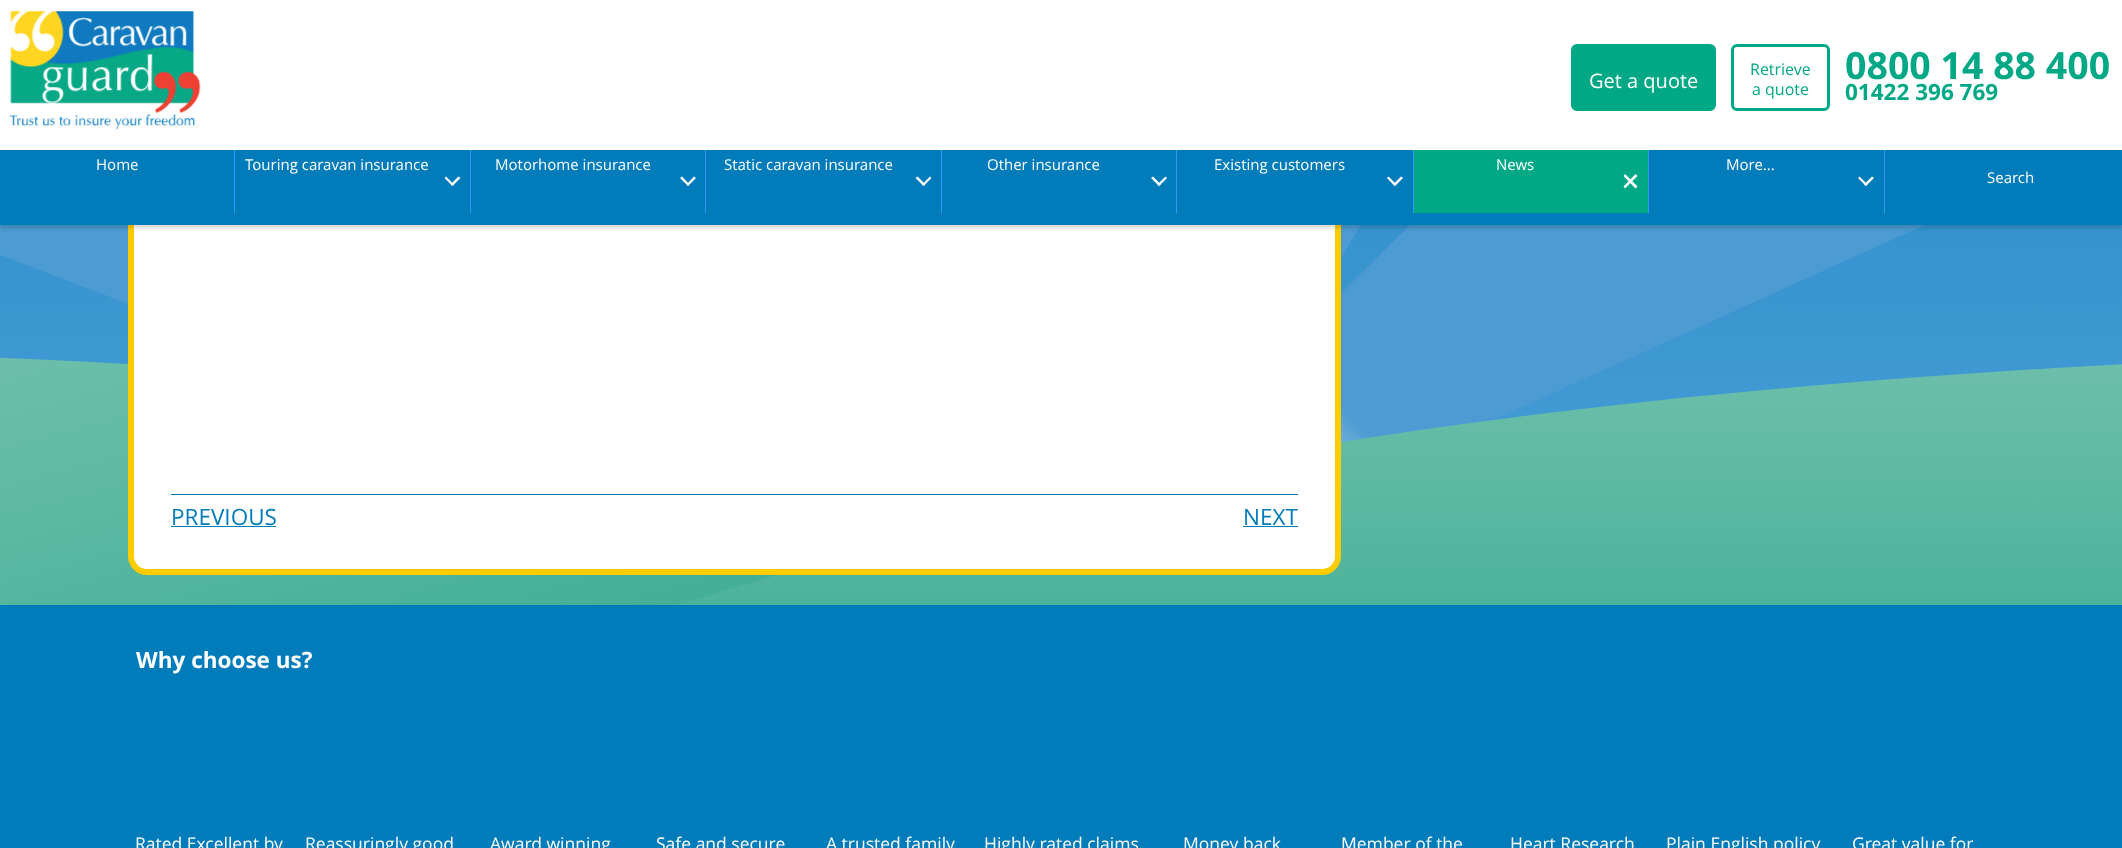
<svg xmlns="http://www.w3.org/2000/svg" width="2122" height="848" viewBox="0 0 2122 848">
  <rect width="100%" height="100%" fill="#fff"/>
  <image x="0" y="225" width="2122" height="380" href="img/1.png"/>
  <rect x="131" y="-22" width="1207" height="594" rx="16" fill="#fff" stroke="#fc0" stroke-width="6"/>
  <path d="M128 0h1213v150H128z" fill="#fff"/>
  <image x="9" y="11" width="192" height="119" href="img/2.png"/>
  <rect x="1572.5" y="45.5" width="142" height="64" rx="4.5" fill="#00a886" stroke="#00a886" stroke-width="3"/>
  <rect x="1732.5" y="45.5" width="96" height="64" rx="4.5" fill="none" stroke="#00a886" stroke-width="3"/>
  <path d="M0 153h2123v75H0z" fill="#00000029" filter="blur(2px)"/>
  <path d="M0 150h2122v75H0z" fill="#007cbb"/>
  <path d="M234 150h1v63H234z" fill="#39f"/>
  <path d="M470 150h1v63H470z" fill="#39f"/>
  <path d="M446 176.5L454 184.5L452.5 186L444.5 178Z" fill="#fff"/>
  <path d="M450.5 184.5L458.5 176.5L460.5 178L452.5 186Z" fill="#fff"/>
  <path d="M705 150h1v63H705z" fill="#39f"/>
  <path d="M682 176.5L689.5 184.5L688 186L680 178Z" fill="#fff"/>
  <path d="M686.5 184.5L694 176.5L696 178L688 186Z" fill="#fff"/>
  <path d="M941 150h1v63H941z" fill="#39f"/>
  <path d="M917.5 176.5L925.5 184.5L923.5 186L915.5 178Z" fill="#fff"/>
  <path d="M922 184.5L930 176.5L931.5 178L923.5 186Z" fill="#fff"/>
  <path d="M1176 150h1v63H1176z" fill="#39f"/>
  <path d="M1153 176.5L1161 184.5L1159 186L1151 178Z" fill="#fff"/>
  <path d="M1157.5 184.5L1165.5 176.5L1167 178L1159 186Z" fill="#fff"/>
  <path d="M1413 150h1v63H1413z" fill="#39f"/>
  <path d="M1388.5 176.5L1396.5 184.5L1394.5 186L1387 178Z" fill="#fff"/>
  <path d="M1393 184.5L1401 176.5L1403 178L1395 186Z" fill="#fff"/>
  <path d="M1414 150h234v63H1414z" fill="#00a886"/>
  <path d="M1648 150h1v63H1648z" fill="#39f"/>
  <path d="M1623.5 186.5L1635.5 174L1637.5 176L1625 188.5Z" fill="#fff"/>
  <path d="M1625 174L1637.5 186.5L1635.5 188.5L1623.5 176Z" fill="#fff"/>
  <path d="M1884 150h1v63H1884z" fill="#39f"/>
  <path d="M1859.5 176.5L1867.5 184.5L1866 186L1858 178Z" fill="#fff"/>
  <path d="M1864 184.5L1872 176.5L1874 178L1866 186Z" fill="#fff"/>
  <path d="M171 494h1127v1H171z" fill="#007cbb"/>
  <path d="M171 526h105v1H171z" fill="#007cbb"/>
  <path d="M1243 526h55v1H1243z" fill="#007cbb"/>
  <path d="M0 605h2122v243H0z" fill="#007cbb"/>
  <text x="1589" y="88" font-family="Open Sans" font-size="20" fill="#fff">Get a quote</text>
  <g font-family="Open Sans" font-size="16" fill="#00a886">
    <text x="1750" y="75">Retrieve</text>
    <text x="1752" y="95">a quote</text>
  </g>
  <text x="1845" y="79" font-family="Open Sans" font-size="37.5" font-weight="bold" fill="#00a886">0800 14 88 400</text>
  <text x="1845" y="100" font-family="Open Sans" font-size="22.5" font-weight="bold" fill="#00a886">01422 396 769</text>
  <g font-family="Open Sans" font-size="15" fill="#fff">
    <text x="96" y="170">Home</text>
    <text x="245" y="170">Touring caravan insurance</text>
    <text x="495" y="170">Motorhome insurance</text>
    <text x="724" y="170">Static caravan insurance</text>
    <text x="987" y="170">Other insurance</text>
    <text x="1214" y="170">Existing customers</text>
    <text x="1496" y="170">News</text>
    <text x="1726" y="170">More...</text>
    <text x="1987" y="183">Search</text>
  </g>
  <g font-family="Open Sans" font-size="22.5" fill="#007cbb">
    <text x="171" y="525">PREVIOUS</text>
    <text x="1243" y="525">NEXT</text>
  </g>
  <text x="136" y="668" font-family="Open Sans" font-size="22.5" font-weight="bold" fill="#fff">Why choose us?</text>
  <g font-family="Open Sans" font-size="17.5" fill="#fff">
    <text x="135" y="850">Rated Excellent by</text>
    <text x="305" y="850">Reassuringly good</text>
    <text x="490" y="850">Award winning</text>
    <text x="656" y="850">Safe and secure</text>
    <text x="826" y="850">A trusted family</text>
    <text x="984" y="850">Highly rated claims</text>
    <text x="1183" y="850">Money back</text>
    <text x="1341" y="850">Member of the</text>
    <text x="1510" y="850">Heart Research</text>
    <text x="1666" y="850">Plain English policy</text>
    <text x="1852" y="850">Great value for</text>
  </g>
</svg>
